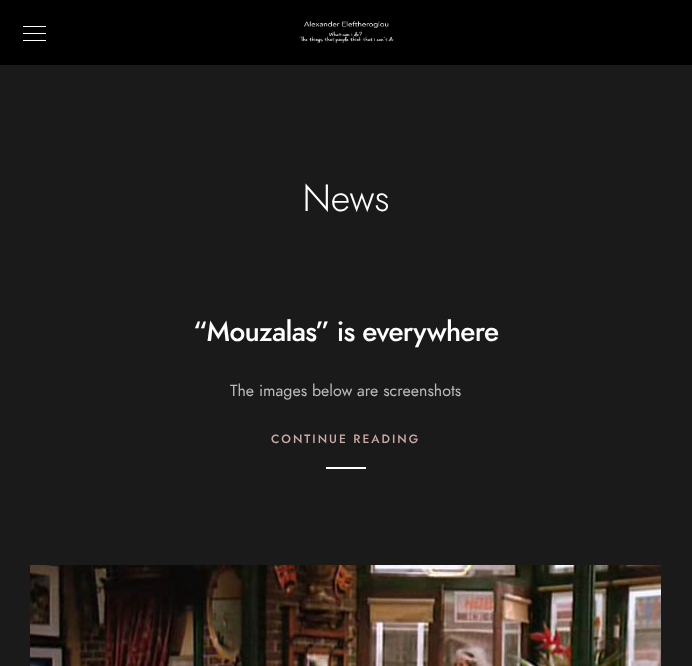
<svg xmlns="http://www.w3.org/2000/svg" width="692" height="666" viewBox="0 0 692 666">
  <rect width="100%" height="100%" fill="#1a1a1a"/>
  <path d="M0 0h692v65H0z" fill="#000"/>
  <image x="299" y="21" width="95" height="22" href="img/1.png"/>
  <path d="M23 33h23v1H23z" fill="#fff"/>
  <path d="M23 26h23v1H23z" fill="#fff"/>
  <path d="M23 40h23v1H23z" fill="#fff"/>
  <path d="M326 467h40v2H326z" fill="#fff"/>
  <image x="30" y="565" width="631" height="101" href="img/2.png"/>
  <text x="303" y="211" font-family="Jost" font-size="38" font-weight="300" fill="#fff">News</text>
  <text x="193" y="341" font-family="Jost" font-size="28" font-weight="500" letter-spacing="-0.7" fill="#fff">“Mouzalas” is everywhere</text>
  <text x="230" y="396" font-family="Jost" font-size="16" fill="#bababa">The images below are screenshots</text>
  <text x="271" y="443" font-family="Jost" font-size="12" font-weight="500" letter-spacing="2" fill="#ccaca8">CONTINUE READING</text>
</svg>
